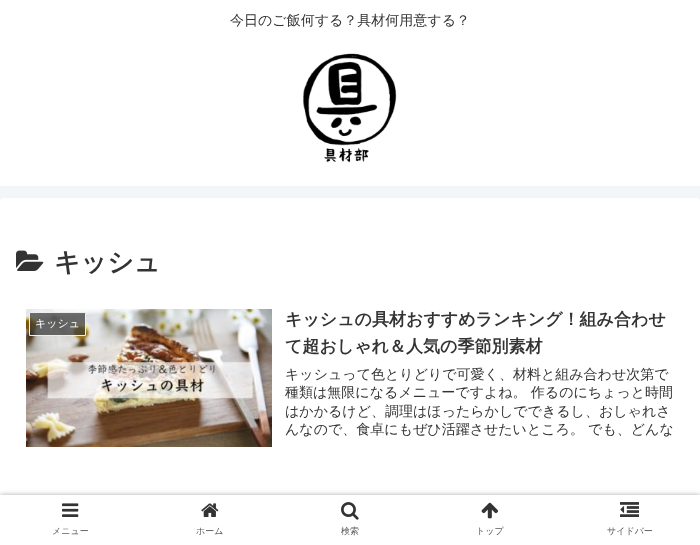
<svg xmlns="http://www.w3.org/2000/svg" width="700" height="545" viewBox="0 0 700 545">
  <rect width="100%" height="100%" fill="#f4f5f7"/>
  <path d="M0 0h700v186H0z" fill="#fff"/>
  <image x="303" y="53" width="94" height="110" href="img/1.png"/>
  <rect y="198" width="700" height="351" rx="4" fill="#fff"/>
  <image x="16" y="250" width="28" height="21" href="img/2.png"/>
  <image x="26" y="309" width="246" height="138" href="img/3.png"/>
  <path d="M29.5 312.5h56v23H29.5z" fill="#333333b3" stroke="#eee"/>
  <path d="M0 495h700v50H0z" fill="#a9a9a9" filter="blur(2.5px)"/>
  <path d="M0 495h700v50H0z" fill="#fff"/>
  <image x="62" y="503" width="17" height="14" href="img/4.png"/>
  <image x="201" y="503" width="18" height="14" href="img/5.png"/>
  <image x="341" y="502" width="18" height="18" href="img/6.png"/>
  <image x="481" y="502" width="17" height="17" href="img/7.png"/>
  <image x="620" y="502" width="19" height="15" href="img/8.png"/>
  <text x="230" y="25" font-family="WenQuanYi Zen Hei" font-size="14" font-weight="500" fill="#333">今日のご飯何する？具材何用意する？</text>
  <text x="54" y="271" font-family="WenQuanYi Zen Hei" font-size="26" font-weight="bold" fill="#333">キッシュ</text>
  <text x="35" y="327" font-family="WenQuanYi Zen Hei" font-size="11" font-weight="500" fill="#fff">キッシュ</text>
  <g font-family="WenQuanYi Zen Hei" font-size="17" font-weight="bold" fill="#333">
    <text x="285" y="325">キッシュの具材おすすめランキング！組み合わせ</text>
    <text x="285" y="352">て超おしゃれ＆人気の季節別素材</text>
  </g>
  <g font-family="WenQuanYi Zen Hei" font-size="14" font-weight="500" fill="#333">
    <text x="285" y="379">キッシュって色とりどりで可愛く、材料と組み合わせ次第で</text>
    <text x="285" y="397">種類は無限になるメニューですよね。 作るのにちょっと時間</text>
    <text x="285" y="416">はかかるけど、調理はほったらかしでできるし、おしゃれさ</text>
    <text x="285" y="434">んなので、食卓にもぜひ活躍させたいところ。 でも、どんな</text>
  </g>
  <g font-family="WenQuanYi Zen Hei" font-size="9" font-weight="500" fill="#5c5c5c">
    <text x="52" y="534">メニュー</text>
    <text x="196" y="534">ホーム</text>
    <text x="341" y="534">検索</text>
    <text x="476" y="534">トップ</text>
    <text x="607" y="534">サイドバー</text>
  </g>
</svg>
